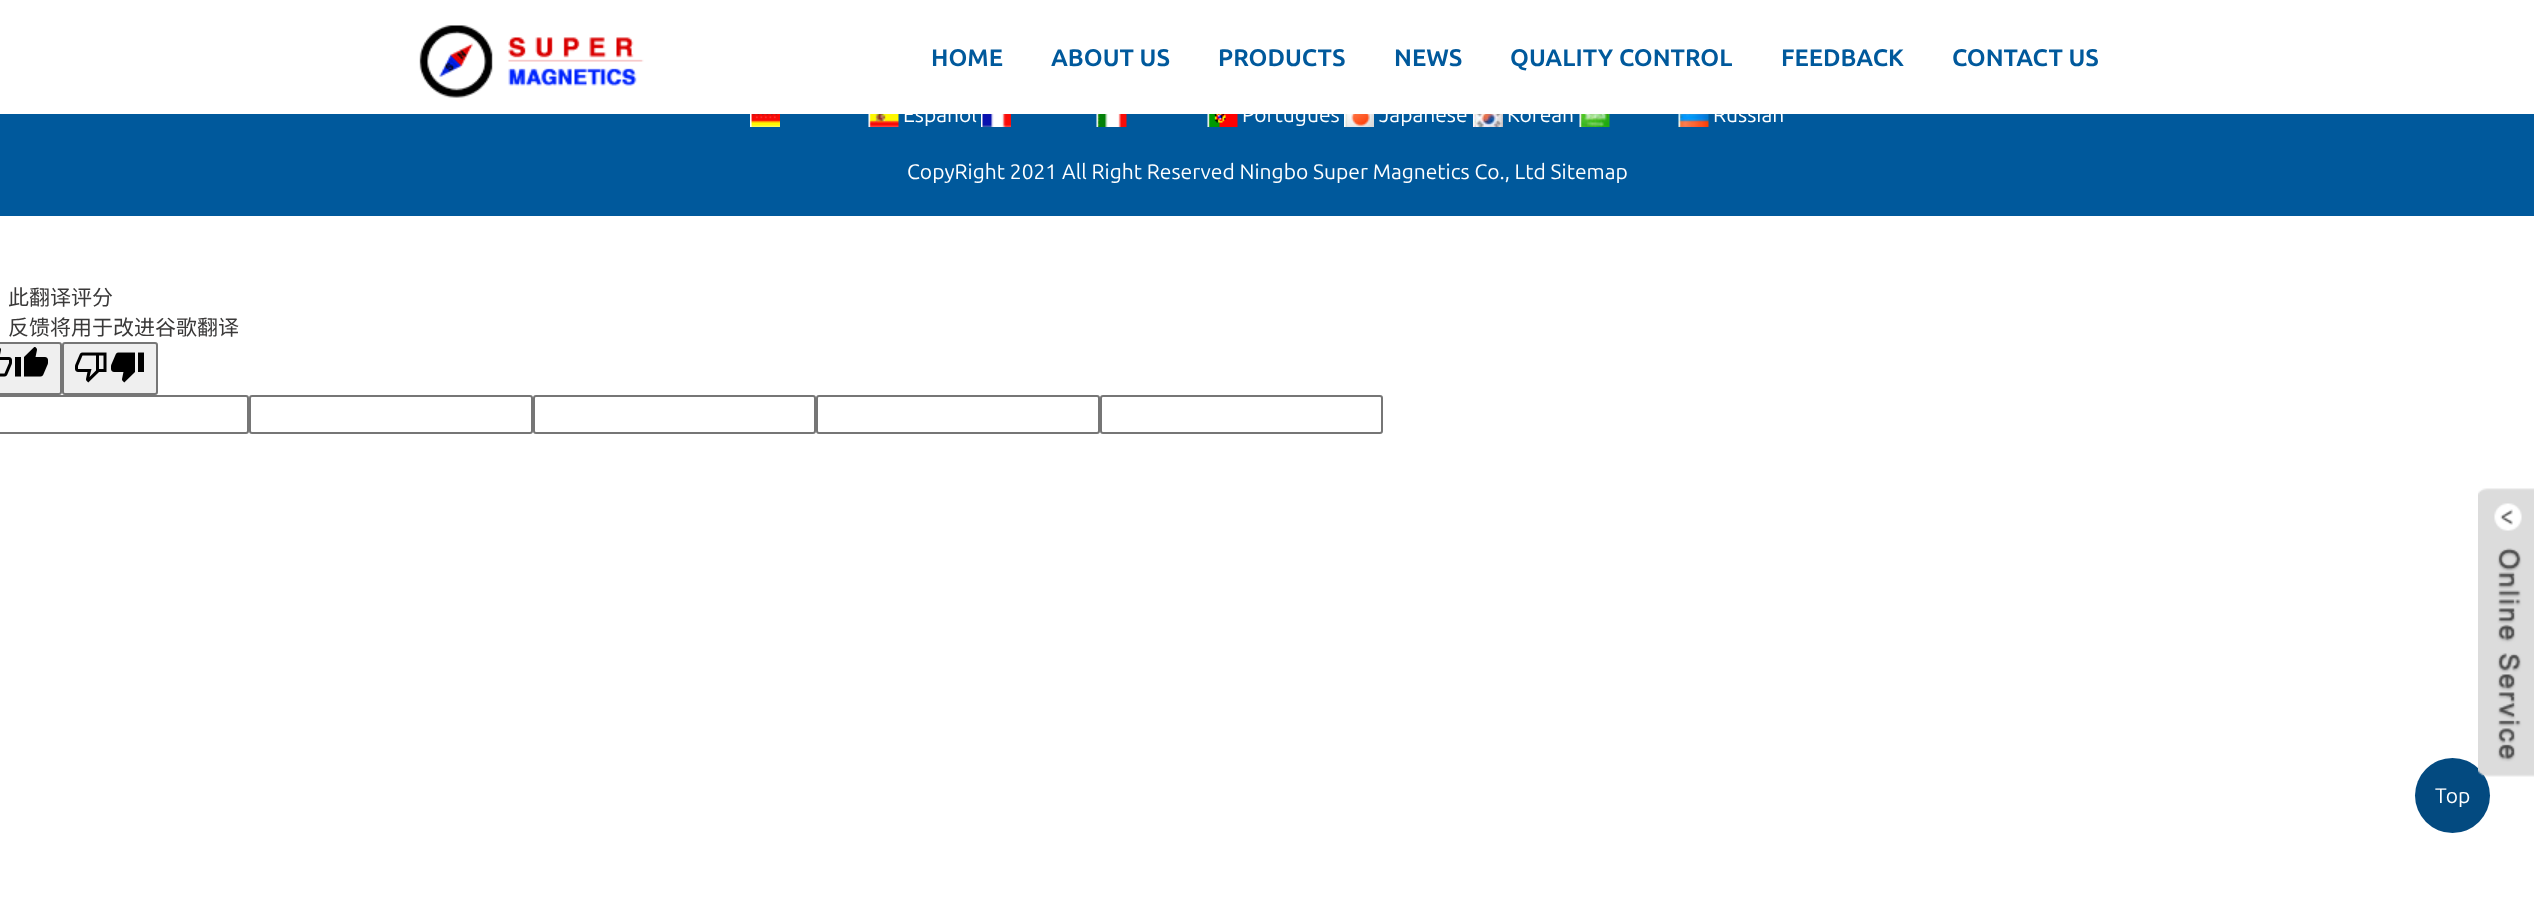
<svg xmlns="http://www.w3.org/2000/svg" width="2534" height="907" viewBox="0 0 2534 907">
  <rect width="100%" height="100%" fill="#fff"/>
  <image x="419" y="25" width="225" height="73" href="img/1.png"/>
  <path d="M0 114h2534v102H0z" fill="#00599c"/>
  <image x="750" y="114" width="30" height="13" href="img/2.png"/>
  <image x="868" y="114" width="31" height="13" href="img/3.png"/>
  <image x="981" y="114" width="30" height="13" href="img/4.png"/>
  <image x="1096" y="114" width="31" height="13" href="img/5.png"/>
  <image x="1207" y="114" width="31" height="13" href="img/6.png"/>
  <image x="1344" y="114" width="30" height="13" href="img/7.png"/>
  <image x="1473" y="114" width="30" height="13" href="img/8.png"/>
  <image x="1579" y="114" width="31" height="13" href="img/9.png"/>
  <image x="1678" y="114" width="31" height="13" href="img/10.png"/>
  <rect x="-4" y="343" width="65" height="51" rx="2" fill="#efefef" stroke="#767676" stroke-width="2"/>
  <image x="0" y="347" width="12" height="30" href="img/11.png"/>
  <image x="15" y="347" width="33" height="30" href="img/12.png"/>
  <rect x="63" y="343" width="94" height="51" rx="2" fill="#efefef" stroke="#767676" stroke-width="2"/>
  <image x="75" y="352" width="32" height="31" href="img/13.png"/>
  <image x="111" y="352" width="33" height="31" href="img/14.png"/>
  <rect x="-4" y="396" width="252" height="37" rx="2" fill="none" stroke="#767676" stroke-width="2"/>
  <rect x="250" y="396" width="282" height="37" rx="2" fill="none" stroke="#767676" stroke-width="2"/>
  <rect x="534" y="396" width="281" height="37" rx="2" fill="none" stroke="#767676" stroke-width="2"/>
  <rect x="817" y="396" width="282" height="37" rx="2" fill="none" stroke="#767676" stroke-width="2"/>
  <rect x="1101" y="396" width="281" height="37" rx="2" fill="none" stroke="#767676" stroke-width="2"/>
  <circle cx="2452.5" cy="795.5" r="37.5" fill="#034a80"/>
  <image x="2478" y="488" width="56" height="289" href="img/15.png"/>
  <g font-family="Ubuntu" font-size="24" font-weight="bold" fill="#00599c">
    <text x="931" y="66">HOME</text>
    <text x="1051" y="66">ABOUT US</text>
    <text x="1218" y="66">PRODUCTS</text>
    <text x="1394" y="66">NEWS</text>
    <text x="1510" y="66">QUALITY CONTROL</text>
    <text x="1781" y="66">FEEDBACK</text>
    <text x="1952" y="66">CONTACT US</text>
  </g>
  <g font-family="Ubuntu" font-size="21" fill="#fff">
    <text x="903" y="122">Espanol</text>
    <text x="1242" y="122">Portugues</text>
    <text x="1379" y="122">Japanese</text>
    <text x="1507" y="122">Korean</text>
    <text x="1713" y="122">Russian</text>
    <text x="907" y="179">CopyRight 2021 All Right Reserved Ningbo Super Magnetics Co., Ltd Sitemap</text>
  </g>
  <g font-family="Noto Sans CJK SC" font-size="21" fill="#3a3939">
    <text x="8" y="305">此翻译评分</text>
    <text x="8" y="335">反馈将用于改进谷歌翻译</text>
  </g>
  <text x="2435" y="803" font-family="Ubuntu" font-size="21" fill="#fff">Top</text>
</svg>
